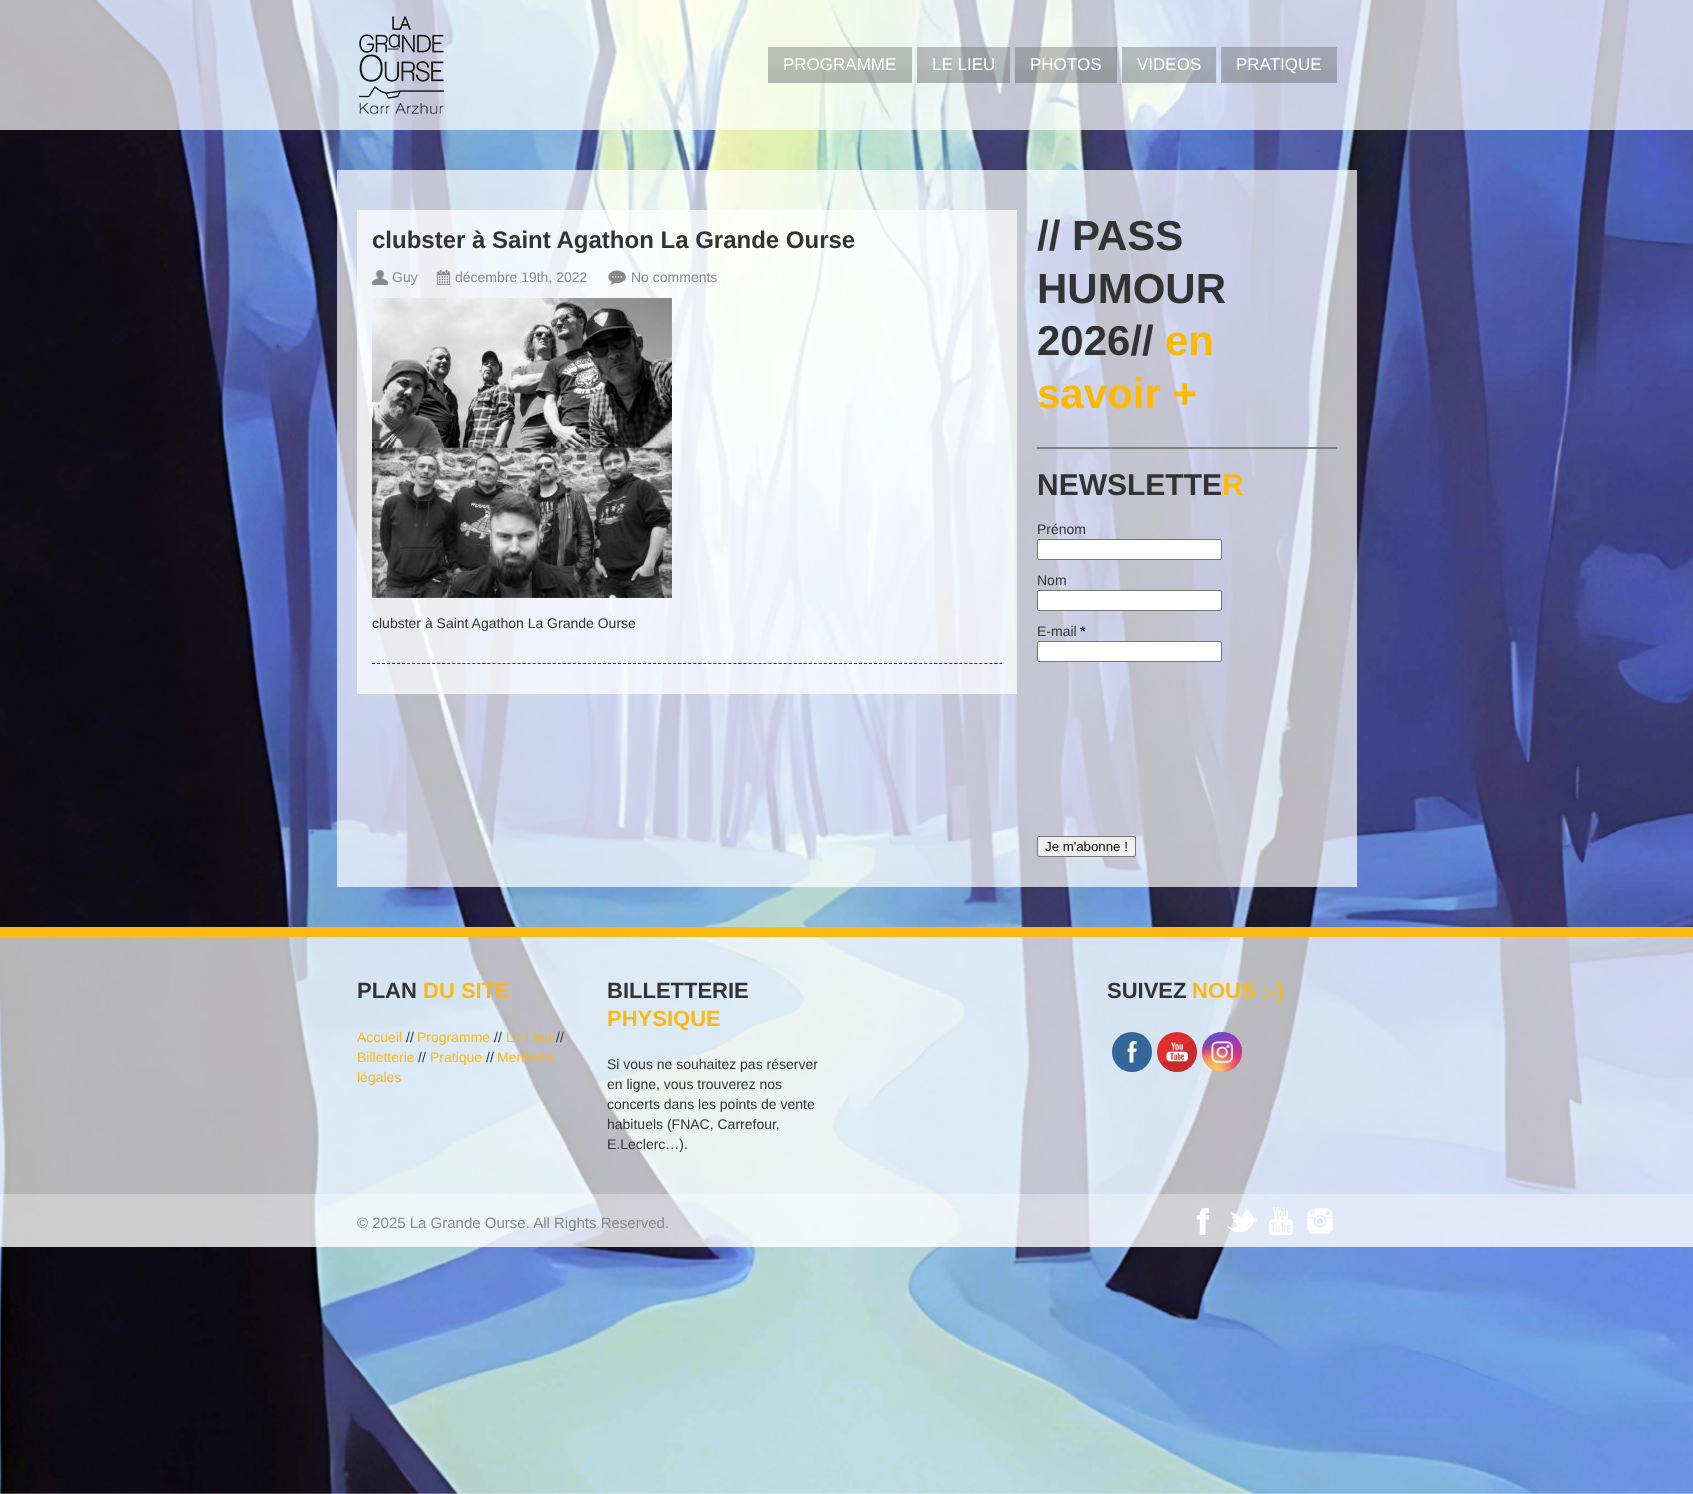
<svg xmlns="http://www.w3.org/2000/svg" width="1693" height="1494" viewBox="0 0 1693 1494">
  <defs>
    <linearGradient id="g1" gradientUnits="userSpaceOnUse" x1="1160" y1="1030" x2="1194" y2="1074"><stop offset="0.14" stop-color="#e02f2f"/><stop offset="0.49" stop-color="#e02f2f"/><stop offset="0.49" stop-color="#c92a2a"/><stop offset="0.85" stop-color="#c92a2a"/></linearGradient>
    <linearGradient id="g2" gradientUnits="userSpaceOnUse" x1="1222" y1="1032" x2="1222" y2="1072"><stop offset="0" stop-color="#6559ca"/><stop offset="0.3" stop-color="#bc318f"/><stop offset="0.5" stop-color="#e33f5f"/><stop offset="0.7" stop-color="#f77638"/><stop offset="1" stop-color="#fec66d"/></linearGradient>
    <radialGradient id="g3" gradientUnits="userSpaceOnUse" cx="1242" cy="1072" r="57"><stop offset="0" stop-color="#d9317a"/><stop offset="1" stop-color="#d9317a" stop-opacity="0"/></radialGradient>
    <radialGradient id="g4" gradientUnits="userSpaceOnUse" cx="0" cy="0" r="1" gradientTransform="matrix(34 0 0 68 1226 1024)"><stop offset="0" stop-color="#893dc2"/><stop offset="0.5" stop-color="#893dc2" stop-opacity="0"/></radialGradient>
    <radialGradient id="g5" gradientUnits="userSpaceOnUse" cx="1242" cy="1032" r="57"><stop offset="0" stop-color="#893dc2"/><stop offset="0.5" stop-color="#893dc2" stop-opacity="0"/></radialGradient>
    <radialGradient id="g6" gradientUnits="userSpaceOnUse" cx="0" cy="0" r="1" gradientTransform="matrix(45 0 0 85 1210 1012)"><stop offset="0" stop-color="#5258cf"/><stop offset="0.5" stop-color="#5258cf" stop-opacity="0"/></radialGradient>
    <radialGradient id="g7" gradientUnits="userSpaceOnUse" cx="0" cy="0" r="1" gradientTransform="matrix(57 0 0 71 1202 1022)"><stop offset="0" stop-color="#5258cf"/><stop offset="0.5" stop-color="#5258cf" stop-opacity="0"/></radialGradient>
    <radialGradient id="g8" gradientUnits="userSpaceOnUse" cx="1202" cy="1088" r="69"><stop offset="0" stop-color="#fec564"/><stop offset="0.5" stop-color="#fec564" stop-opacity="0"/></radialGradient>
    <radialGradient id="g9" gradientUnits="userSpaceOnUse" cx="1216" cy="1068" r="44"><stop offset="0" stop-color="#fec564"/><stop offset="0.5" stop-color="#fec564" stop-opacity="0"/></radialGradient>
  </defs>
  <rect width="100%" height="100%" fill="#fff"/>
  <image x="0" y="0" width="1693" height="1494" href="img/1.png"/>
  <path d="M0 0h1693v130H0z" fill="#ffffffb3"/>
  <image x="359" y="16" width="85" height="99" href="img/2.png"/>
  <image x="768" y="47" width="144" height="36" href="img/3.png"/>
  <image x="917" y="47" width="93" height="36" href="img/4.png"/>
  <image x="1015" y="47" width="102" height="36" href="img/5.png"/>
  <image x="1122" y="47" width="94" height="36" href="img/6.png"/>
  <image x="1221" y="47" width="116" height="36" href="img/7.png"/>
  <path d="M337 170h1020v717H337z" fill="#ffffffb3"/>
  <path d="M357 210h660v484H357z" fill="#ffffffb3"/>
  <image x="372" y="270" width="16" height="15" href="img/8.png"/>
  <image x="437" y="270" width="13" height="15" href="img/9.png"/>
  <image x="608" y="270" width="18" height="15" href="img/10.png"/>
  <image x="372" y="298" width="300" height="300" href="img/11.png"/>
  <path d="M372 663.5H1002" fill="none" stroke="#333" stroke-dasharray="3 2.02"/>
  <path d="M1037 447h300v2H1037z" fill="#808080"/>
  <rect x="1037.5" y="539.5" width="184" height="20" rx="1.5" fill="#fff" stroke="#767676"/>
  <rect x="1037.5" y="590.5" width="184" height="20" rx="1.5" fill="#fff" stroke="#767676"/>
  <rect x="1037.5" y="641.5" width="184" height="20" rx="1.5" fill="#fff" stroke="#767676"/>
  <rect x="1037.5" y="836.5" width="98" height="20" rx="1.5" fill="#efefef" stroke="#767676"/>
  <path d="M0 937h1693v257H0z" fill="#ffffffb3"/>
  <path d="M0 927h1693v10H0z" fill="#fdb813"/>
  <circle cx="1132" cy="1052" r="20" fill="#369"/>
  <image x="1127" y="1041" width="10" height="22" href="img/12.png"/>
  <circle cx="1177" cy="1052" r="20" fill="url(#g1)"/>
  <image x="1166" y="1042" width="22" height="20" href="img/13.png"/>
  <circle cx="1222" cy="1052" r="20" fill="url(#g2)"/>
  <circle cx="1222" cy="1052" r="20" fill="url(#g3)"/>
  <circle cx="1222" cy="1052" r="20" fill="url(#g4)"/>
  <circle cx="1222" cy="1052" r="20" fill="url(#g5)"/>
  <circle cx="1222" cy="1052" r="20" fill="url(#g6)"/>
  <circle cx="1222" cy="1052" r="20" fill="url(#g7)"/>
  <circle cx="1222" cy="1052" r="20" fill="url(#g8)"/>
  <circle cx="1222" cy="1052" r="20" fill="url(#g9)"/>
  <image x="1211" y="1041" width="22" height="22" href="img/14.png"/>
  <path d="M0 1194h1693v53H0z" fill="#ffffffcc"/>
  <image x="1196" y="1208" width="13" height="27" href="img/15.png"/>
  <image x="1227" y="1210" width="30" height="23" href="img/16.png"/>
  <image x="1269" y="1207" width="24" height="28" href="img/17.png"/>
  <image x="1307" y="1208" width="26" height="26" href="img/18.png"/>
  <g font-family="Liberation Sans" font-size="17" fill="#fff">
    <text x="783" y="70">PROGRAMME</text>
    <text x="932" y="70">LE LIEU</text>
    <text x="1030" y="70">PHOTOS</text>
    <text x="1137" y="70">VIDEOS</text>
    <text x="1236" y="70">PRATIQUE</text>
  </g>
  <text x="372" y="248" font-family="Liberation Sans" font-size="24" font-weight="bold" fill="#333">clubster à Saint Agathon La Grande Ourse</text>
  <g font-family="Liberation Sans" font-size="14" fill="#888">
    <text x="392" y="282">Guy</text>
    <text x="455" y="282">décembre 19th, 2022</text>
    <text x="631" y="282">No comments</text>
  </g>
  <text x="372" y="628" font-family="Liberation Sans" font-size="14" fill="#333">clubster à Saint Agathon La Grande Ourse</text>
  <g font-family="Liberation Sans" font-size="42" font-weight="bold" fill="#333">
    <text x="1037" y="250">// PASS</text>
    <text x="1037" y="303">HUMOUR</text>
    <text x="1037" y="355">2026//</text>
  </g>
  <g font-family="Liberation Sans" font-size="42" font-weight="bold" fill="#fcb900">
    <text x="1165" y="355">en</text>
    <text x="1037" y="408">savoir +</text>
  </g>
  <text x="1037" y="495" font-family="Liberation Sans" font-size="30" font-weight="bold" fill="#333">NEWSLETTE</text>
  <text x="1222" y="495" font-family="Liberation Sans" font-size="30" font-weight="bold" fill="#fdb813">R</text>
  <g font-family="Liberation Sans" font-size="14" fill="#333">
    <text x="1037" y="534">Prénom</text>
    <text x="1037" y="585">Nom</text>
    <text x="1037" y="636">E-mail</text>
  </g>
  <text x="1080" y="636" font-family="Liberation Sans" font-size="14" font-weight="bold" fill="#333">*</text>
  <text x="1045" y="851" font-family="Liberation Sans" font-size="13.25" fill="#000">Je m'abonne !</text>
  <text x="357" y="998" font-family="Liberation Sans" font-size="22" font-weight="bold" fill="#333">PLAN</text>
  <text x="423" y="998" font-family="Liberation Sans" font-size="22" font-weight="bold" fill="#fdb813">DU SITE</text>
  <text x="357" y="1042" font-family="Liberation Sans" font-size="14" fill="#fdb813">Accueil</text>
  <text x="406" y="1042" font-family="Liberation Sans" font-size="14" fill="#333">//</text>
  <text x="417" y="1042" font-family="Liberation Sans" font-size="14" fill="#fdb813">Programme</text>
  <text x="494" y="1042" font-family="Liberation Sans" font-size="14" fill="#333">//</text>
  <text x="506" y="1042" font-family="Liberation Sans" font-size="14" fill="#fdb813">Le Lieu</text>
  <text x="556" y="1042" font-family="Liberation Sans" font-size="14" fill="#333">//</text>
  <text x="357" y="1062" font-family="Liberation Sans" font-size="14" fill="#fdb813">Billetterie</text>
  <text x="418" y="1062" font-family="Liberation Sans" font-size="14" fill="#333">//</text>
  <text x="430" y="1062" font-family="Liberation Sans" font-size="14" fill="#fdb813">Pratique</text>
  <text x="486" y="1062" font-family="Liberation Sans" font-size="14" fill="#333">//</text>
  <g font-family="Liberation Sans" font-size="14" fill="#fdb813">
    <text x="497" y="1062">Mentions</text>
    <text x="357" y="1082">légales</text>
  </g>
  <text x="607" y="998" font-family="Liberation Sans" font-size="22" font-weight="bold" fill="#333">BILLETTERIE</text>
  <text x="607" y="1026" font-family="Liberation Sans" font-size="22" font-weight="bold" fill="#fdb813">PHYSIQUE</text>
  <g font-family="Liberation Sans" font-size="14" fill="#333">
    <text x="607" y="1069">Si vous ne souhaitez pas réserver</text>
    <text x="607" y="1089">en ligne, vous trouverez nos</text>
    <text x="607" y="1109">concerts dans les points de vente</text>
    <text x="607" y="1129">habituels (FNAC, Carrefour,</text>
    <text x="607" y="1149">E.Leclerc…).</text>
  </g>
  <text x="1107" y="998" font-family="Liberation Sans" font-size="22" font-weight="bold" fill="#333">SUIVEZ</text>
  <text x="1192" y="998" font-family="Liberation Sans" font-size="22" font-weight="bold" fill="#fdb813">NOUS :-)</text>
  <text x="357" y="1228" font-family="Liberation Sans" font-size="15" fill="#888">© 2025 La Grande Ourse. All Rights Reserved.</text>
</svg>
